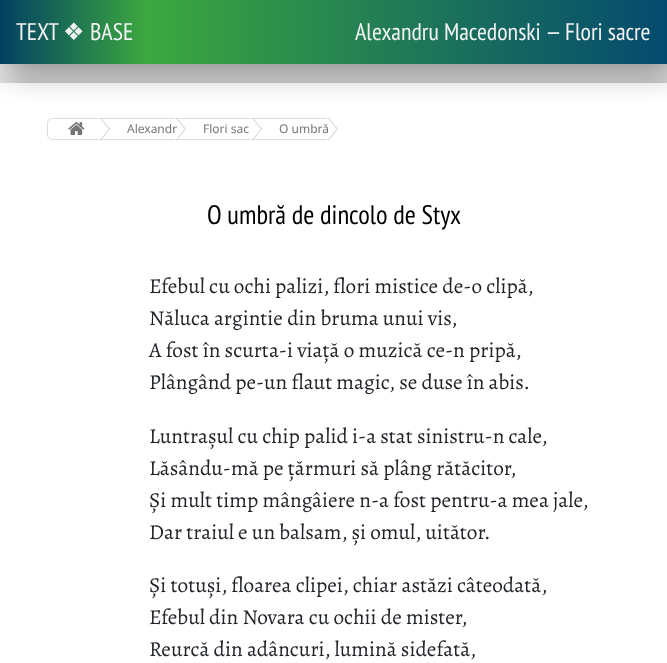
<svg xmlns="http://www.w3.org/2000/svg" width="667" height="663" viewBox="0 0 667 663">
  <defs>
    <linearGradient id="g1" gradientUnits="userSpaceOnUse" x1="0" y1="32" x2="667" y2="32"><stop offset="0" stop-color="#024063"/><stop offset="0.22" stop-color="#3ca83f"/><stop offset="1" stop-color="#044a6f"/></linearGradient>
  </defs>
  <rect width="100%" height="100%" fill="#e8e8e8"/>
  <path d="M8 91h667v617H8z" fill="#00000066" filter="blur(15px)"/>
  <path d="M0 83h667v580H0z" fill="#fff"/>
  <path d="M8 8h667v64H8z" fill="#00000066" filter="blur(15px)"/>
  <path d="M0 0h667v64H0z" fill="url(#g1)"/>
  <path d="M52 118.5H99.5V139.5H52C49.5 139.5 47.5 137.5 47.5 135V123C47.5 120.5 49.5 118.5 52 118.5Z" fill="none" stroke="#ddd"/>
  <path d="M101.5 118.5h74v21H101.5z" fill="none" stroke="#ddd"/>
  <path d="M100 141V117L110 129Z" fill="#ccc"/>
  <path d="M99 141V117L109 129Z" fill="#fff"/>
  <image x="68" y="122" width="17" height="13" href="img/1.png"/>
  <path d="M177.5 118.5h74v21H177.5z" fill="none" stroke="#ddd"/>
  <path d="M176 141V117L186 129Z" fill="#ccc"/>
  <path d="M175 141V117L185 129Z" fill="#fff"/>
  <path d="M253.5 118.5h74v21H253.5z" fill="none" stroke="#ddd"/>
  <path d="M252 141V117L262 129Z" fill="#ccc"/>
  <path d="M251 141V117L261 129Z" fill="#fff"/>
  <path d="M328 141V117L338 129Z" fill="#ccc"/>
  <path d="M327 141V117L337 129Z" fill="#fff"/>
  <text x="16" y="40" font-family="PT Sans Narrow" font-size="24" fill="#f2f2f2">TEXT</text>
  <text x="63" y="40" font-family="DejaVu Sans" font-size="24" fill="#f2f2f2">❖</text>
  <g font-family="PT Sans Narrow" font-size="24" fill="#f2f2f2">
    <text x="90" y="40">BASE</text>
    <text x="355" y="40">Alexandru Macedonski — Flori sacre</text>
  </g>
  <g font-family="Noto Sans" font-size="12" fill="#757575">
    <text x="127" y="133">Alexandr</text>
    <text x="203" y="133">Flori sac</text>
    <text x="279" y="133">O umbră</text>
  </g>
  <text x="207" y="224" font-family="PT Sans Narrow" font-size="26.75" fill="#000">O umbră de dincolo de Styx</text>
  <g font-family="Alegreya" font-size="21.3" fill="#212529">
    <text x="149" y="293">Efebul cu ochi palizi, flori mistice de-o clipă,</text>
    <text x="149" y="325">Năluca argintie din bruma unui vis,</text>
    <text x="149" y="357">A fost în scurta-i viață o muzică ce-n pripă,</text>
    <text x="149" y="389">Plângând pe-un flaut magic, se duse în abis.</text>
    <text x="149" y="443">Luntrașul cu chip palid i-a stat sinistru-n cale,</text>
    <text x="149" y="475">Lăsându-mă pe țărmuri să plâng rătăcitor,</text>
    <text x="149" y="507">Și mult timp mângâiere n-a fost pentru-a mea jale,</text>
    <text x="149" y="539">Dar traiul e un balsam, și omul, uitător.</text>
    <text x="149" y="592">Și totuși, floarea clipei, chiar astăzi câteodată,</text>
    <text x="149" y="624">Efebul din Novara cu ochii de mister,</text>
    <text x="149" y="656">Reurcă din adâncuri, lumină sidefată,</text>
  </g>
</svg>
